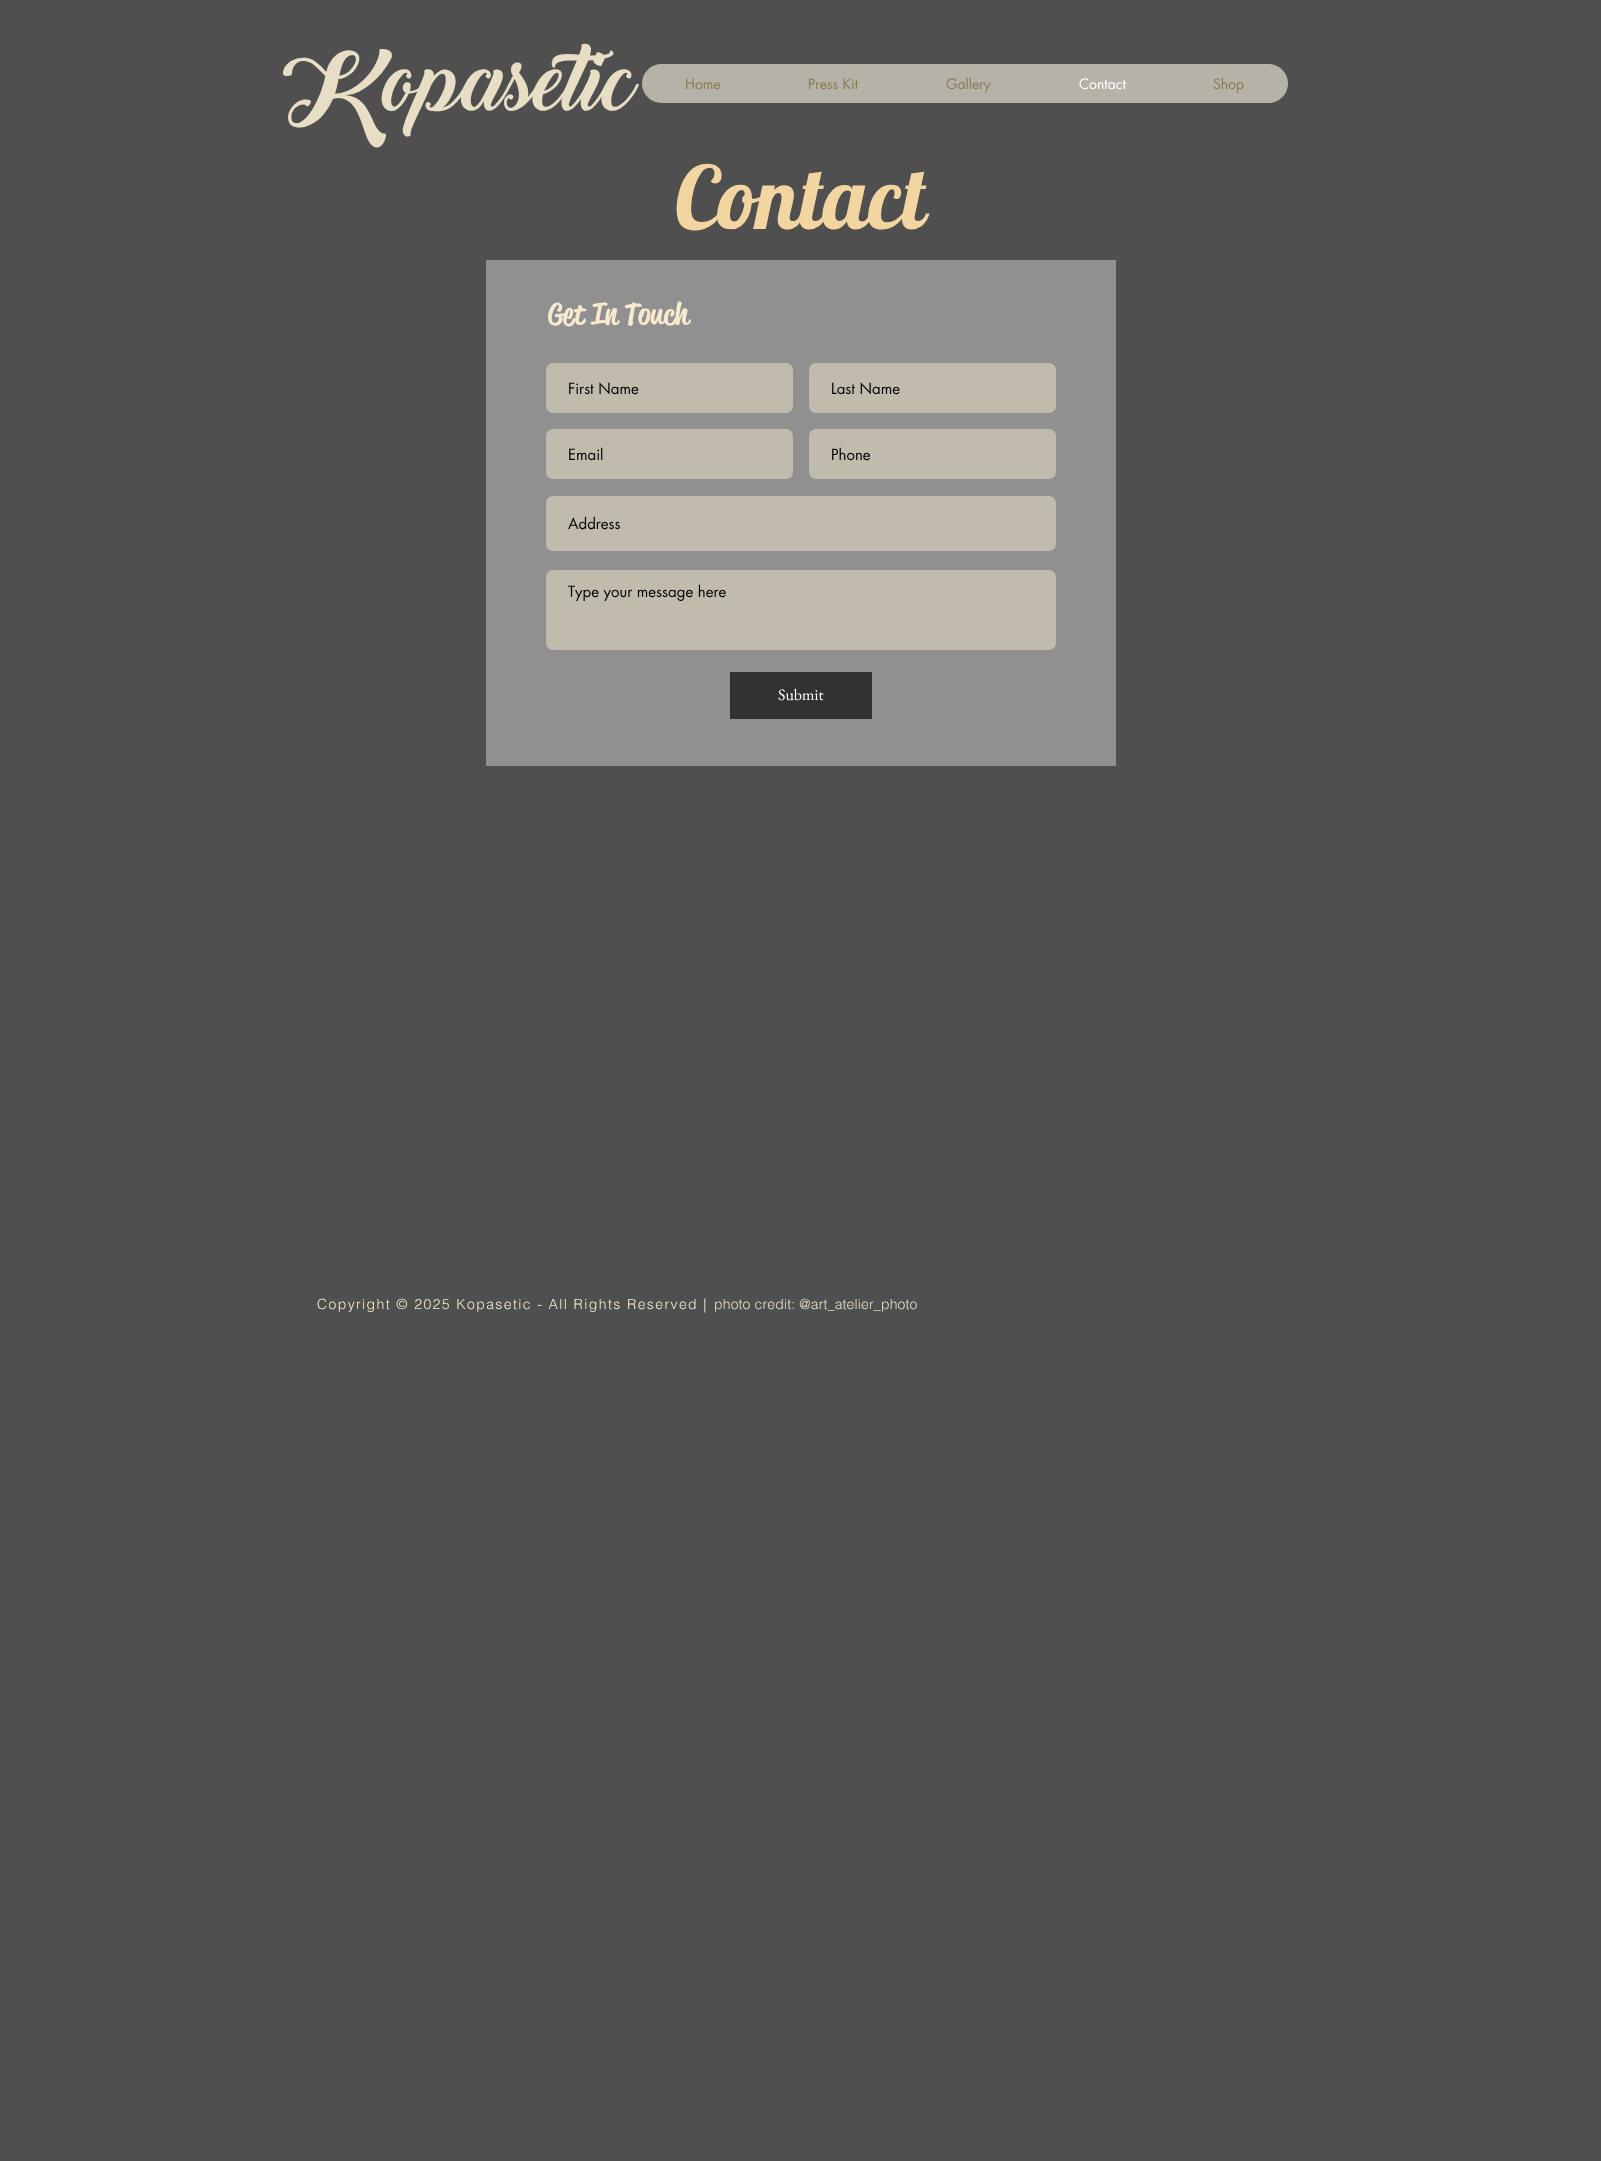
<svg xmlns="http://www.w3.org/2000/svg" width="1601" height="2161" viewBox="0 0 1601 2161">
  <style>*{font-kerning:none!important;font-variant-ligatures:none!important}</style>
  <rect width="100%" height="100%" fill="#4f4f4f"/>
  <rect x="642" y="64" width="646" height="39" rx="19.5" fill="#b6b2a8"/>
  <path d="M486 260h630v506H486z" fill="#909090"/>
  <rect x="546" y="363" width="247" height="50" rx="7" fill="#c0bbad"/>
  <rect x="809" y="363" width="247" height="50" rx="7" fill="#c0bbad"/>
  <rect x="546" y="429" width="247" height="50" rx="7" fill="#c0bbad"/>
  <rect x="809" y="429" width="247" height="50" rx="7" fill="#c0bbad"/>
  <rect x="546" y="496" width="510" height="55" rx="7" fill="#c0bbad"/>
  <rect x="546" y="570" width="510" height="80" rx="7" fill="#c0bbad"/>
  <path d="M730 672h142v47H730z" fill="#323232"/>
  <text x="283" y="111" font-family="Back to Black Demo" font-size="83" font-weight="900" fill="#e8dec5">Kopasetic</text>
  <g font-family="futura" font-size="14" fill="#8a7a54">
    <text x="685" y="89">Home</text>
    <text x="808" y="89">Press Kit</text>
    <text x="946" y="89">Gallery</text>
  </g>
  <text x="1079" y="89" font-family="futura" font-size="14" fill="#fff">Contact</text>
  <text x="1213" y="89" font-family="futura" font-size="14" fill="#8a7a54">Shop</text>
  <text x="675" y="229" font-family="Lobster" font-size="87" fill="#f2d5a0">Contact</text>
  <text x="548" y="324" font-family="'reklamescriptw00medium'" font-size="30" font-weight="500" fill="#f8eace">Get In Touch</text>
  <g font-family="futura" font-size="15" fill="#000">
    <text x="568" y="394">First Name</text>
    <text x="831" y="394">Last Name</text>
    <text x="568" y="460">Email</text>
    <text x="831" y="460">Phone</text>
    <text x="568" y="529">Address</text>
    <text x="568" y="597">Type your message here</text>
  </g>
  <text x="778" y="700" font-family="EB Garamond" font-size="16" fill="#fff">Submit</text>
  <text x="317" y="1309" font-family="helvetica" font-size="14" font-weight="300" letter-spacing="1.4" fill="#f8eace">Copyright © 2025 Kopasetic - All Rights Reserved |</text>
  <text x="714" y="1309" font-family="helvetica" font-size="14" font-weight="300" letter-spacing="0.15" fill="#e8dec5">photo credit: @art_atelier_photo</text>
</svg>
